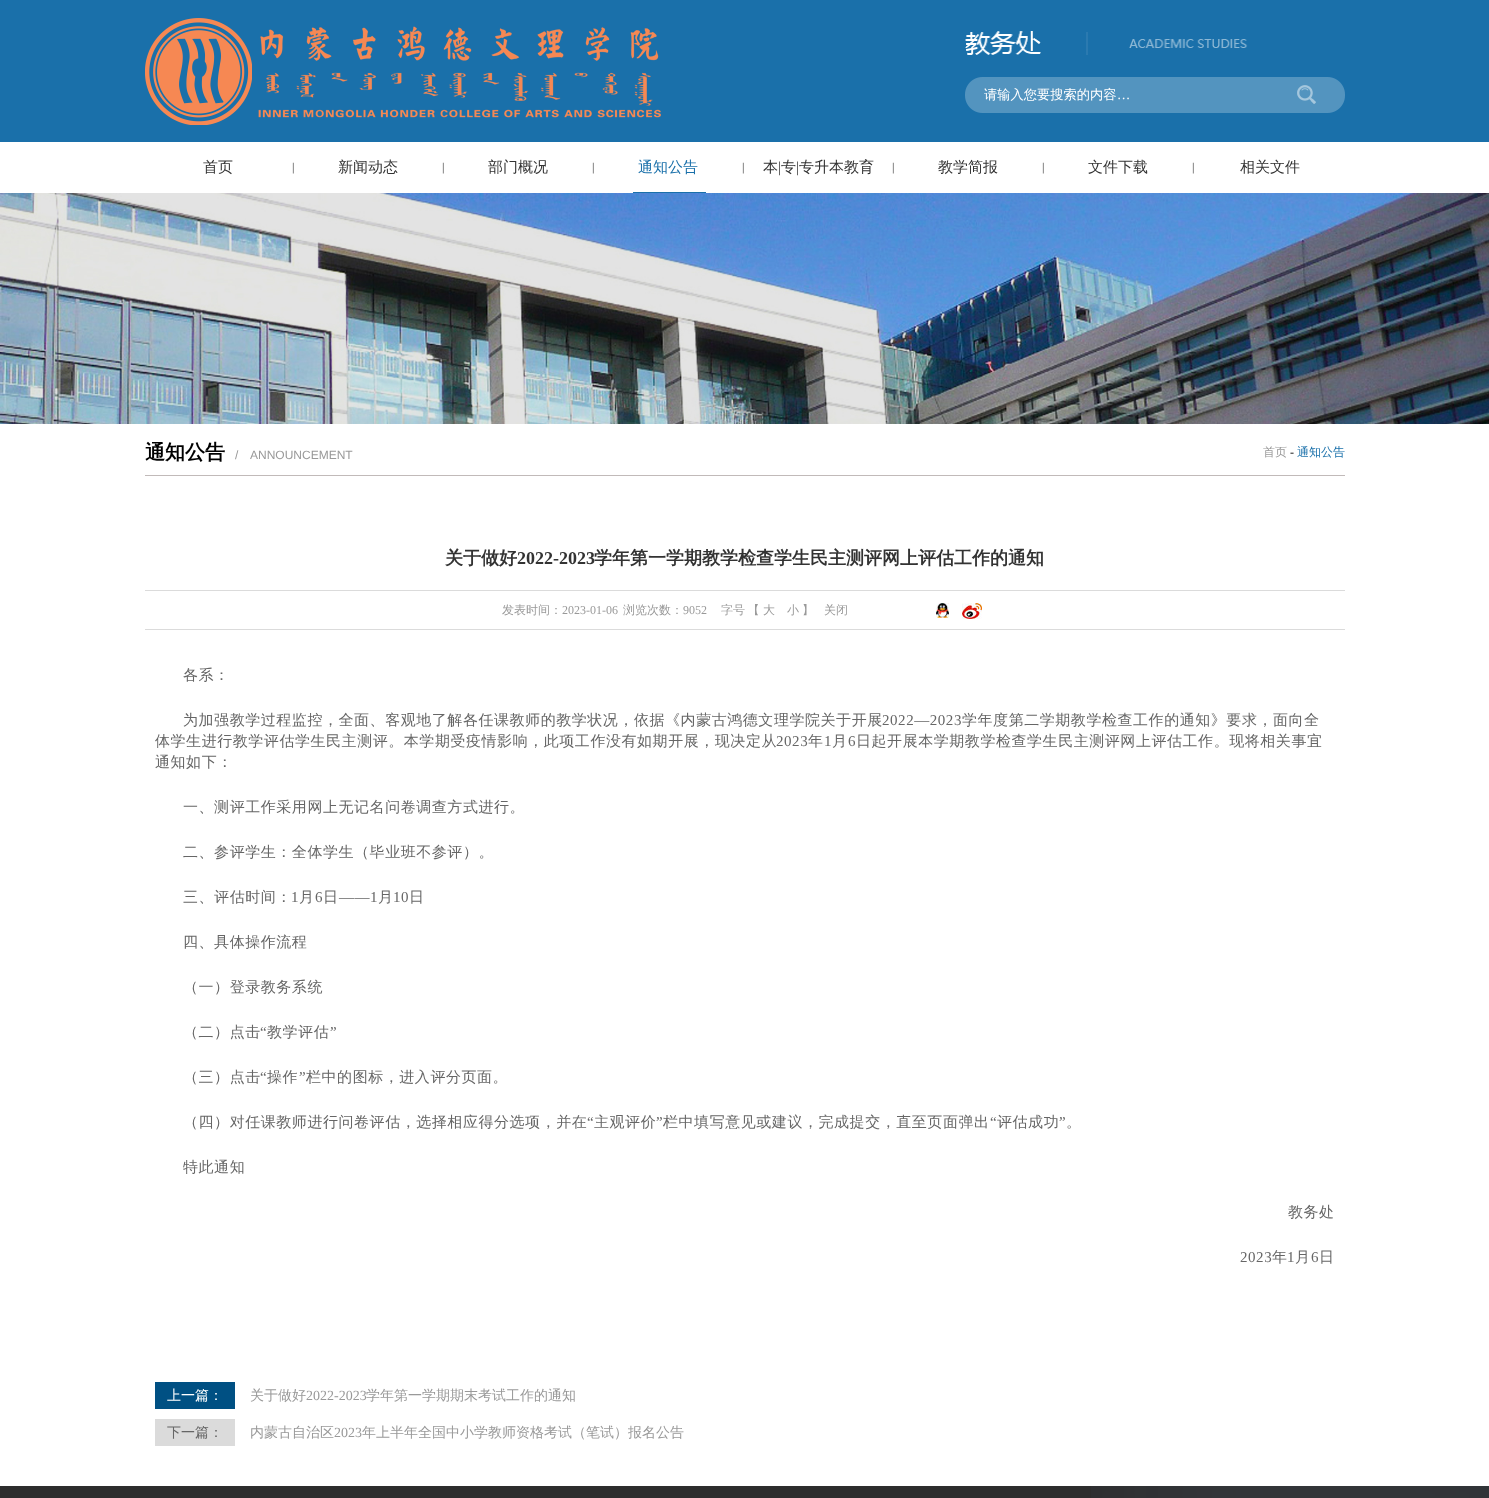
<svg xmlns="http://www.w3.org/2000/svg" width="1489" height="1498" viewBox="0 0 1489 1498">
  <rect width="100%" height="100%" fill="#fff"/>
  <path d="M0 0h1489v142H0z" fill="#1a70aa"/>
  <image x="145" y="18" width="516" height="107" href="img/1.png"/>
  <image x="965" y="31" width="283" height="24" href="img/2.png"/>
  <image x="965" y="77" width="380" height="36" href="img/3.png"/>
  <image x="1297" y="85" width="19" height="19" href="img/4.png"/>
  <path d="M633 192h73v1H633z" fill="#1a70aa"/>
  <image x="0" y="193" width="1489" height="231" href="img/5.png"/>
  <path d="M145 475h1200v1H145z" fill="#c1bab9"/>
  <path d="M145 590h1200v1H145z" fill="#dbdbdb"/>
  <path d="M145 629h1200v1H145z" fill="#dbdbdb"/>
  <image x="936" y="603" width="13" height="15" href="img/6.png"/>
  <image x="962" y="603" width="20" height="16" href="img/7.png"/>
  <path d="M155 1382h80v27H155z" fill="#005083"/>
  <path d="M155 1419h80v27H155z" fill="#dbdbdb"/>
  <path d="M0 1486h1489v12H0z" fill="#2d2d2d"/>
  <image x="1091" y="1486" width="398" height="12" href="img/8.png"/>
  <text x="984" y="99" font-family="WenQuanYi Zen Hei" font-size="13.25" font-weight="500" fill="#fff">请输入您要搜索的内容</text>
  <text x="1117" y="99" font-family="Liberation Serif" font-size="13.25" fill="#fff">…</text>
  <text x="203" y="172" font-family="WenQuanYi Zen Hei" font-size="15" font-weight="500" fill="#333">首页</text>
  <text x="292" y="171" font-family="Liberation Serif" font-size="12" fill="#333">|</text>
  <text x="338" y="172" font-family="WenQuanYi Zen Hei" font-size="15" font-weight="500" fill="#333">新闻动态</text>
  <text x="442" y="171" font-family="Liberation Serif" font-size="12" fill="#333">|</text>
  <text x="488" y="172" font-family="WenQuanYi Zen Hei" font-size="15" font-weight="500" fill="#333">部门概况</text>
  <text x="592" y="171" font-family="Liberation Serif" font-size="12" fill="#333">|</text>
  <text x="638" y="172" font-family="WenQuanYi Zen Hei" font-size="15" font-weight="500" fill="#1a70aa">通知公告</text>
  <text x="742" y="171" font-family="Liberation Serif" font-size="12" fill="#333">|</text>
  <text x="763" y="172" font-family="WenQuanYi Zen Hei" font-size="15" font-weight="500" fill="#333">本</text>
  <text x="778" y="172" font-family="Liberation Serif" font-size="15" fill="#333">|</text>
  <text x="781" y="172" font-family="WenQuanYi Zen Hei" font-size="15" font-weight="500" fill="#333">专</text>
  <text x="796" y="172" font-family="Liberation Serif" font-size="15" fill="#333">|</text>
  <text x="799" y="172" font-family="WenQuanYi Zen Hei" font-size="15" font-weight="500" fill="#333">专升本教育</text>
  <text x="892" y="171" font-family="Liberation Serif" font-size="12" fill="#333">|</text>
  <text x="938" y="172" font-family="WenQuanYi Zen Hei" font-size="15" font-weight="500" fill="#333">教学简报</text>
  <text x="1042" y="171" font-family="Liberation Serif" font-size="12" fill="#333">|</text>
  <text x="1088" y="172" font-family="WenQuanYi Zen Hei" font-size="15" font-weight="500" fill="#333">文件下载</text>
  <text x="1192" y="171" font-family="Liberation Serif" font-size="12" fill="#333">|</text>
  <text x="1240" y="172" font-family="WenQuanYi Zen Hei" font-size="15" font-weight="500" fill="#333">相关文件</text>
  <text x="145" y="459" font-family="WenQuanYi Zen Hei" font-size="20" font-weight="bold" fill="#000">通知公告</text>
  <g font-family="Liberation Sans" font-size="12" fill="#999">
    <text x="235" y="459">/</text>
    <text x="250" y="459">ANNOUNCEMENT</text>
  </g>
  <text x="1263" y="456" font-family="WenQuanYi Zen Hei" font-size="12" font-weight="500" fill="#999">首页</text>
  <text x="1290" y="456" font-family="Liberation Serif" font-size="12" fill="#000">-</text>
  <text x="1297" y="456" font-family="WenQuanYi Zen Hei" font-size="12" font-weight="500" fill="#1a70aa">通知公告</text>
  <text x="445" y="564" font-family="WenQuanYi Zen Hei" font-size="18" font-weight="bold" fill="#333">关于做好</text>
  <text x="517" y="564" font-family="Liberation Serif" font-size="18" font-weight="bold" fill="#333">2022-2023</text>
  <text x="594" y="564" font-family="WenQuanYi Zen Hei" font-size="18" font-weight="bold" fill="#333">学年第一学期教学检查学生民主测评网上评估工作的通知</text>
  <text x="502" y="614" font-family="WenQuanYi Zen Hei" font-size="12" font-weight="500" fill="#999">发表时间：</text>
  <text x="562" y="614" font-family="Liberation Serif" font-size="12" fill="#999">2023-01-06</text>
  <text x="623" y="614" font-family="WenQuanYi Zen Hei" font-size="12" font-weight="500" fill="#999">浏览次数：</text>
  <text x="683" y="614" font-family="Liberation Serif" font-size="12" fill="#999">9052</text>
  <g font-family="WenQuanYi Zen Hei" font-size="12" font-weight="500" fill="#999">
    <text x="721" y="614" word-spacing="-1">字号 【</text>
    <text x="763" y="614">大</text>
    <text x="787" y="614">小</text>
    <text x="802" y="614">】</text>
    <text x="824" y="614">关闭</text>
  </g>
  <g font-family="WenQuanYi Zen Hei" font-size="15" font-weight="500" letter-spacing="0.55" fill="#666">
    <text x="183" y="680">各系：</text>
    <text x="183" y="725">为加强教学过程监控，全面、客观地了解各任课教师的教学状况，依据《内蒙古鸿德文理学院关于开展</text>
  </g>
  <text x="882" y="725" font-family="Liberation Serif" font-size="15" letter-spacing="0.55" fill="#666">2022—2023</text>
  <g font-family="WenQuanYi Zen Hei" font-size="15" font-weight="500" letter-spacing="0.55" fill="#666">
    <text x="962" y="725">学年度第二学期教学检查工作的通知》要求，面向全</text>
    <text x="155" y="746">体学生进行教学评估学生民主测评。本学期受疫情影响，此项工作没有如期开展，现决定从</text>
  </g>
  <text x="776" y="746" font-family="Liberation Serif" font-size="15" letter-spacing="0.55" fill="#666">2023</text>
  <text x="808" y="746" font-family="WenQuanYi Zen Hei" font-size="15" font-weight="500" letter-spacing="0.55" fill="#666">年</text>
  <text x="824" y="746" font-family="Liberation Serif" font-size="15" letter-spacing="0.55" fill="#666">1</text>
  <text x="832" y="746" font-family="WenQuanYi Zen Hei" font-size="15" font-weight="500" letter-spacing="0.55" fill="#666">月</text>
  <text x="848" y="746" font-family="Liberation Serif" font-size="15" letter-spacing="0.55" fill="#666">6</text>
  <g font-family="WenQuanYi Zen Hei" font-size="15" font-weight="500" letter-spacing="0.55" fill="#666">
    <text x="856" y="746">日起开展本学期教学检查学生民主测评网上评估工作。现将相关事宜</text>
    <text x="155" y="767">通知如下：</text>
    <text x="183" y="812">一、测评工作采用网上无记名问卷调查方式进行。</text>
    <text x="183" y="857">二、参评学生：全体学生（毕业班不参评）。</text>
    <text x="183" y="902">三、评估时间：</text>
  </g>
  <text x="291" y="902" font-family="Liberation Serif" font-size="15" letter-spacing="0.55" fill="#666">1</text>
  <text x="299" y="902" font-family="WenQuanYi Zen Hei" font-size="15" font-weight="500" letter-spacing="0.55" fill="#666">月</text>
  <text x="315" y="902" font-family="Liberation Serif" font-size="15" letter-spacing="0.55" fill="#666">6</text>
  <text x="323" y="902" font-family="WenQuanYi Zen Hei" font-size="15" font-weight="500" letter-spacing="0.55" fill="#666">日</text>
  <text x="339" y="902" font-family="Liberation Serif" font-size="15" letter-spacing="0.55" fill="#666">——1</text>
  <text x="378" y="902" font-family="WenQuanYi Zen Hei" font-size="15" font-weight="500" letter-spacing="0.55" fill="#666">月</text>
  <text x="393" y="902" font-family="Liberation Serif" font-size="15" letter-spacing="0.55" fill="#666">10</text>
  <g font-family="WenQuanYi Zen Hei" font-size="15" font-weight="500" letter-spacing="0.55" fill="#666">
    <text x="409" y="902">日</text>
    <text x="183" y="947">四、具体操作流程</text>
    <text x="183" y="992">（一）登录教务系统</text>
    <text x="183" y="1037">（二）点击</text>
  </g>
  <text x="260" y="1037" font-family="Liberation Serif" font-size="15" letter-spacing="0.55" fill="#666">“</text>
  <text x="267" y="1037" font-family="WenQuanYi Zen Hei" font-size="15" font-weight="500" letter-spacing="0.55" fill="#666">教学评估</text>
  <text x="330" y="1037" font-family="Liberation Serif" font-size="15" letter-spacing="0.55" fill="#666">”</text>
  <text x="183" y="1082" font-family="WenQuanYi Zen Hei" font-size="15" font-weight="500" letter-spacing="0.55" fill="#666">（三）点击</text>
  <text x="260" y="1082" font-family="Liberation Serif" font-size="15" letter-spacing="0.55" fill="#666">“</text>
  <text x="267" y="1082" font-family="WenQuanYi Zen Hei" font-size="15" font-weight="500" letter-spacing="0.55" fill="#666">操作</text>
  <text x="299" y="1082" font-family="Liberation Serif" font-size="15" letter-spacing="0.55" fill="#666">”</text>
  <g font-family="WenQuanYi Zen Hei" font-size="15" font-weight="500" letter-spacing="0.55" fill="#666">
    <text x="306" y="1082">栏中的图标，进入评分页面。</text>
    <text x="183" y="1127">（四）对任课教师进行问卷评估，选择相应得分选项，并在</text>
  </g>
  <text x="587" y="1127" font-family="Liberation Serif" font-size="15" letter-spacing="0.55" fill="#666">“</text>
  <text x="594" y="1127" font-family="WenQuanYi Zen Hei" font-size="15" font-weight="500" letter-spacing="0.55" fill="#666">主观评价</text>
  <text x="656" y="1127" font-family="Liberation Serif" font-size="15" letter-spacing="0.55" fill="#666">”</text>
  <text x="663" y="1127" font-family="WenQuanYi Zen Hei" font-size="15" font-weight="500" letter-spacing="0.55" fill="#666">栏中填写意见或建议，完成提交，直至页面弹出</text>
  <text x="990" y="1127" font-family="Liberation Serif" font-size="15" letter-spacing="0.55" fill="#666">“</text>
  <text x="997" y="1127" font-family="WenQuanYi Zen Hei" font-size="15" font-weight="500" letter-spacing="0.55" fill="#666">评估成功</text>
  <text x="1059" y="1127" font-family="Liberation Serif" font-size="15" letter-spacing="0.55" fill="#666">”</text>
  <g font-family="WenQuanYi Zen Hei" font-size="15" font-weight="500" letter-spacing="0.55" fill="#666">
    <text x="1066" y="1127">。</text>
    <text x="183" y="1172">特此通知</text>
    <text x="1288" y="1217">教务处</text>
  </g>
  <text x="1240" y="1262" font-family="Liberation Serif" font-size="15" letter-spacing="0.55" fill="#666">2023</text>
  <text x="1272" y="1262" font-family="WenQuanYi Zen Hei" font-size="15" font-weight="500" letter-spacing="0.55" fill="#666">年</text>
  <text x="1287" y="1262" font-family="Liberation Serif" font-size="15" letter-spacing="0.55" fill="#666">1</text>
  <text x="1295" y="1262" font-family="WenQuanYi Zen Hei" font-size="15" font-weight="500" letter-spacing="0.55" fill="#666">月</text>
  <text x="1311" y="1262" font-family="Liberation Serif" font-size="15" letter-spacing="0.55" fill="#666">6</text>
  <text x="1319" y="1262" font-family="WenQuanYi Zen Hei" font-size="15" font-weight="500" letter-spacing="0.55" fill="#666">日</text>
  <text x="167" y="1400" font-family="WenQuanYi Zen Hei" font-size="14" font-weight="500" fill="#fff">上一篇：</text>
  <text x="250" y="1400" font-family="WenQuanYi Zen Hei" font-size="14" font-weight="500" fill="#999">关于做好</text>
  <text x="306" y="1400" font-family="Liberation Serif" font-size="14" fill="#999">2022-2023</text>
  <text x="366" y="1400" font-family="WenQuanYi Zen Hei" font-size="14" font-weight="500" fill="#999">学年第一学期期末考试工作的通知</text>
  <text x="167" y="1437" font-family="WenQuanYi Zen Hei" font-size="14" font-weight="500" fill="#666">下一篇：</text>
  <text x="250" y="1437" font-family="WenQuanYi Zen Hei" font-size="14" font-weight="500" fill="#999">内蒙古自治区</text>
  <text x="334" y="1437" font-family="Liberation Serif" font-size="14" fill="#999">2023</text>
  <text x="362" y="1437" font-family="WenQuanYi Zen Hei" font-size="14" font-weight="500" fill="#999">年上半年全国中小学教师资格考试（笔试）报名公告</text>
</svg>
